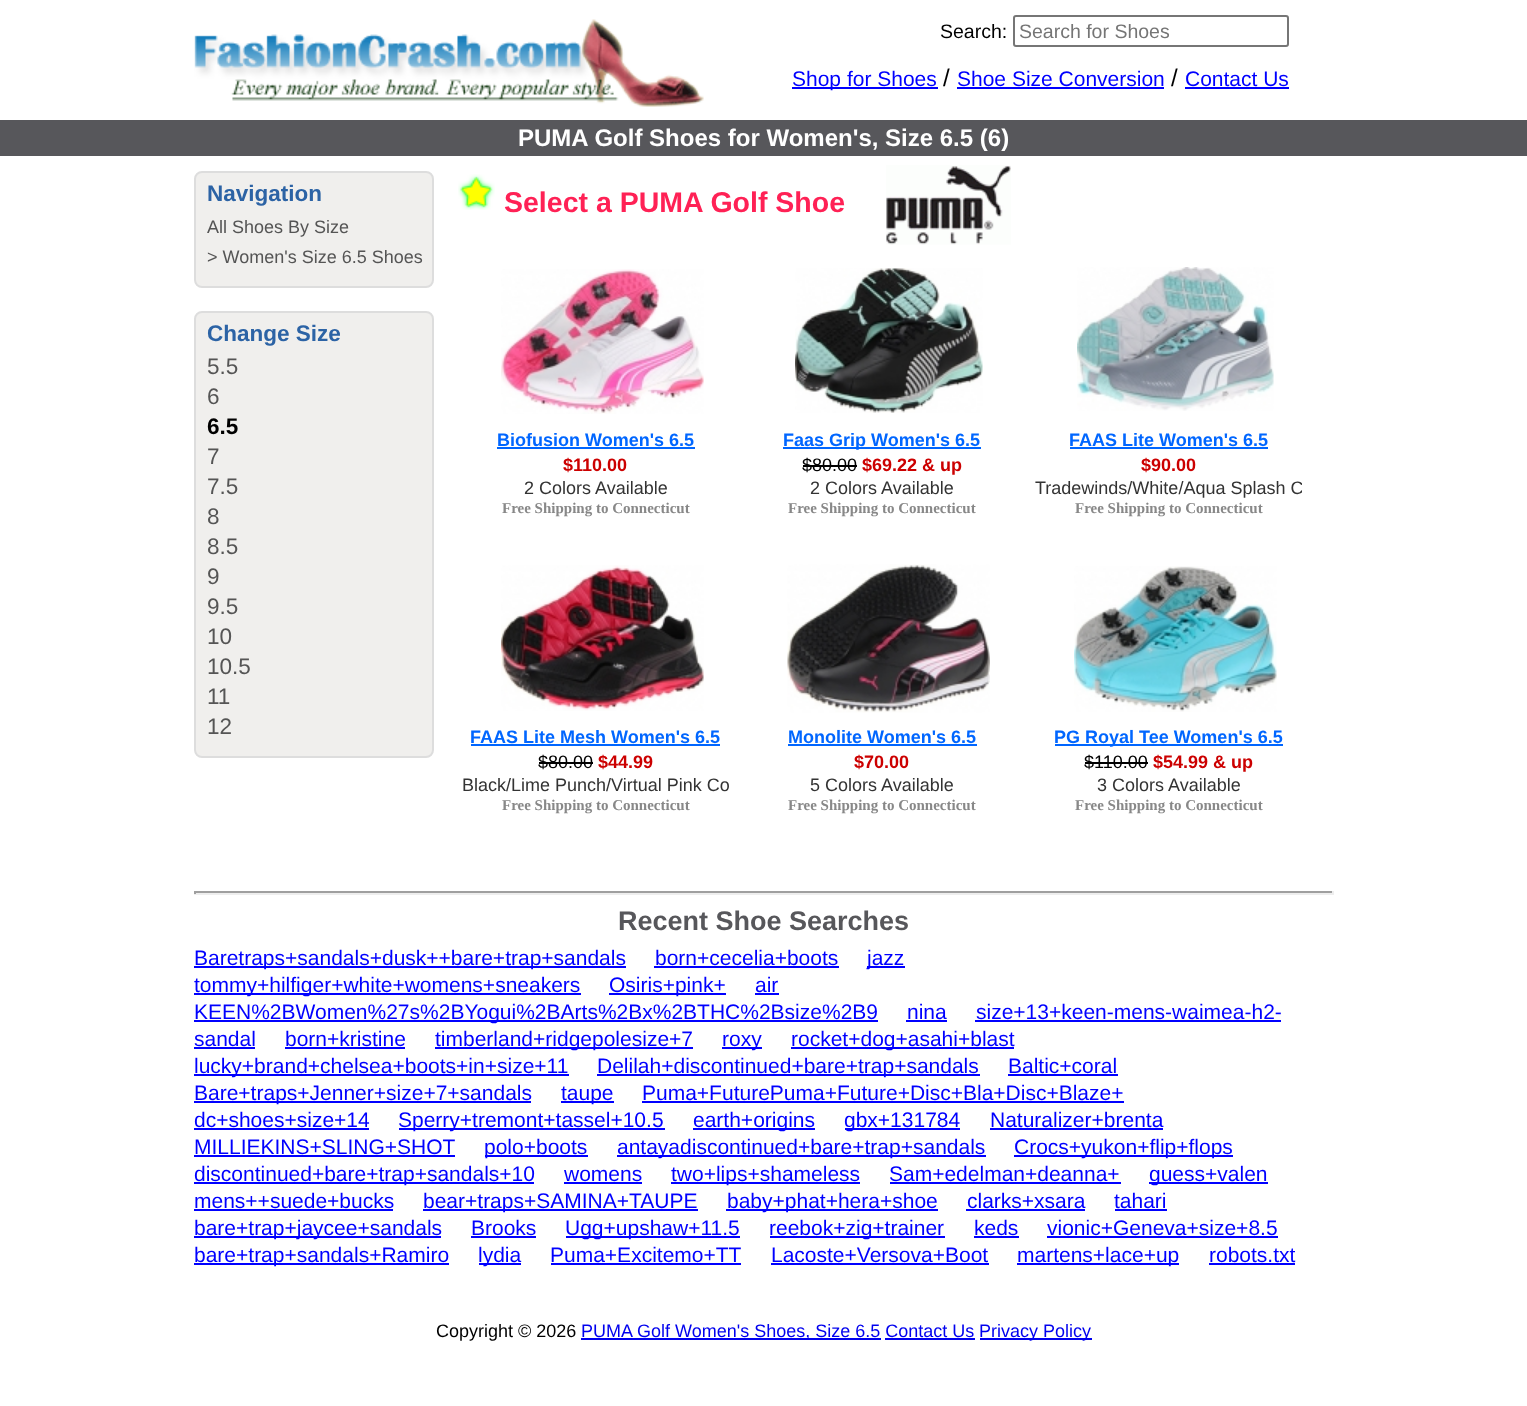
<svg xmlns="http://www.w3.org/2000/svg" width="1527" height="1406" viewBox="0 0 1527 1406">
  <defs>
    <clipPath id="clip1"><rect x="1035" y="266" width="267" height="285" rx="9"/></clipPath>
  </defs>
  <rect width="100%" height="100%" fill="#fff"/>
  <image x="194" y="19" width="510" height="88" href="img/1.png"/>
  <rect x="1014" y="16" width="274" height="30" rx="2" fill="none" stroke="#767676" stroke-width="2"/>
  <path d="M792 87h146v2H792z" fill="#00f"/>
  <path d="M957 87h207v2H957z" fill="#00f"/>
  <path d="M1185 87h104v2H1185z" fill="#00f"/>
  <path d="M0 120h1527v36H0z" fill="#57575b"/>
  <rect x="195" y="172" width="238" height="115" rx="7" fill="#f0efed" stroke="#ddd" stroke-width="2"/>
  <rect x="195" y="312" width="238" height="445" rx="7" fill="#f0efed" stroke="#ddd" stroke-width="2"/>
  <image x="458" y="174" width="37" height="36" href="img/2.png"/>
  <image x="886" y="165" width="125" height="80" href="img/3.png"/>
  <image x="501" y="269" width="203" height="145" href="img/4.png"/>
  <path d="M497 447h198v2H497z" fill="#06f"/>
  <image x="795" y="268" width="188" height="145" href="img/5.png"/>
  <path d="M783 447h198v2H783z" fill="#06f"/>
  <path d="M803 465h54v2H803z" fill="#000"/>
  <image x="1077" y="267" width="197" height="144" href="img/6.png"/>
  <path d="M1070 447h198v2H1070z" fill="#06f"/>
  <image x="501" y="565" width="203" height="146" href="img/7.png"/>
  <path d="M471 744h249v2H471z" fill="#06f"/>
  <path d="M539 762h54v2H539z" fill="#000"/>
  <image x="787" y="564" width="203" height="149" href="img/8.png"/>
  <path d="M788 744h189v2H788z" fill="#06f"/>
  <image x="1074" y="566" width="203" height="146" href="img/9.png"/>
  <path d="M1055 744h228v2H1055z" fill="#06f"/>
  <path d="M1085 762h63v2H1085z" fill="#000"/>
  <path d="M194 891h1140v2H194z" fill="#9f9f9f"/>
  <path d="M1332 891h2v3H1332z" fill="#eee"/>
  <path d="M194 893h1140v2H194z" fill="#eee"/>
  <path d="M194 891h2v3H194z" fill="#9f9f9f"/>
  <path d="M194 966h432v2H194z" fill="#00f"/>
  <path d="M654 966h185v2H654z" fill="#00f"/>
  <path d="M867 966h38v2H867z" fill="#00f"/>
  <path d="M194 993h387v2H194z" fill="#00f"/>
  <path d="M609 993h117v2H609z" fill="#00f"/>
  <path d="M755 993h24v2H755z" fill="#00f"/>
  <path d="M194 1020h684v2H194z" fill="#00f"/>
  <path d="M906 1020h41v2H906z" fill="#00f"/>
  <path d="M975 1020h306v2H975z" fill="#00f"/>
  <path d="M194 1047h61v2H194z" fill="#00f"/>
  <path d="M285 1047h120v2H285z" fill="#00f"/>
  <path d="M435 1047h258v2H435z" fill="#00f"/>
  <path d="M722 1047h40v2H722z" fill="#00f"/>
  <path d="M791 1047h223v2H791z" fill="#00f"/>
  <path d="M194 1074h375v2H194z" fill="#00f"/>
  <path d="M597 1074h383v2H597z" fill="#00f"/>
  <path d="M1008 1074h110v2H1008z" fill="#00f"/>
  <path d="M194 1101h337v2H194z" fill="#00f"/>
  <path d="M561 1101h53v2H561z" fill="#00f"/>
  <path d="M642 1101h482v2H642z" fill="#00f"/>
  <path d="M194 1128h175v2H194z" fill="#00f"/>
  <path d="M399 1128h266v2H399z" fill="#00f"/>
  <path d="M693 1128h122v2H693z" fill="#00f"/>
  <path d="M845 1128h115v2H845z" fill="#00f"/>
  <path d="M990 1128h173v2H990z" fill="#00f"/>
  <path d="M194 1155h261v2H194z" fill="#00f"/>
  <path d="M485 1155h103v2H485z" fill="#00f"/>
  <path d="M617 1155h369v2H617z" fill="#00f"/>
  <path d="M1014 1155h219v2H1014z" fill="#00f"/>
  <path d="M194 1182h340v2H194z" fill="#00f"/>
  <path d="M564 1182h78v2H564z" fill="#00f"/>
  <path d="M671 1182h189v2H671z" fill="#00f"/>
  <path d="M890 1182h231v2H890z" fill="#00f"/>
  <path d="M1149 1182h119v2H1149z" fill="#00f"/>
  <path d="M194 1209h199v2H194z" fill="#00f"/>
  <path d="M423 1209h275v2H423z" fill="#00f"/>
  <path d="M726 1209h212v2H726z" fill="#00f"/>
  <path d="M966 1209h119v2H966z" fill="#00f"/>
  <path d="M1115 1209h52v2H1115z" fill="#00f"/>
  <path d="M194 1236h247v2H194z" fill="#00f"/>
  <path d="M471 1236h65v2H471z" fill="#00f"/>
  <path d="M566 1236h174v2H566z" fill="#00f"/>
  <path d="M770 1236h175v2H770z" fill="#00f"/>
  <path d="M974 1236h45v2H974z" fill="#00f"/>
  <path d="M1047 1236h231v2H1047z" fill="#00f"/>
  <path d="M194 1263h255v2H194z" fill="#00f"/>
  <path d="M479 1263h42v2H479z" fill="#00f"/>
  <path d="M551 1263h190v2H551z" fill="#00f"/>
  <path d="M771 1263h218v2H771z" fill="#00f"/>
  <path d="M1017 1263h162v2H1017z" fill="#00f"/>
  <path d="M1209 1263h86v2H1209z" fill="#00f"/>
  <path d="M581 1338h300v2H581z" fill="#00e"/>
  <path d="M980 1338h112v2H980z" fill="#00e"/>
  <path d="M885 1338h90v2H885z" fill="#00e"/>
  <text x="940" y="38" font-family="Liberation Sans" font-size="19.5" fill="#000">Search:</text>
  <text x="1019" y="38" font-family="Liberation Sans" font-size="19.5" fill="#757575">Search for Shoes</text>
  <text x="792" y="86" font-family="Liberation Sans" font-size="21" fill="#00f">Shop for Shoes</text>
  <text x="943" y="86" font-family="Liberation Sans" font-size="24" fill="#000">/</text>
  <text x="957" y="86" font-family="Liberation Sans" font-size="21" fill="#00f">Shoe Size Conversion</text>
  <text x="1171" y="86" font-family="Liberation Sans" font-size="24" fill="#000">/</text>
  <text x="1185" y="86" font-family="Liberation Sans" font-size="21" fill="#00f">Contact Us</text>
  <text x="518" y="146" font-family="Liberation Sans" font-size="24" font-weight="bold" fill="#fff">PUMA Golf Shoes for Women's, Size 6.5 (6)</text>
  <text x="207" y="201" font-family="Liberation Sans" font-size="22.5" font-weight="bold" fill="#2c63a5">Navigation</text>
  <g font-family="Liberation Sans" font-size="18" fill="#555">
    <text x="207" y="233">All Shoes By Size</text>
    <text x="207" y="263">&gt; Women's Size 6.5 Shoes</text>
  </g>
  <text x="207" y="341" font-family="Liberation Sans" font-size="22.5" font-weight="bold" fill="#2c63a5">Change Size</text>
  <g font-family="Liberation Sans" font-size="22.5" fill="#555">
    <text x="207" y="374">5.5</text>
    <text x="207" y="404">6</text>
  </g>
  <text x="207" y="434" font-family="Liberation Sans" font-size="22.5" font-weight="bold" fill="#000">6.5</text>
  <g font-family="Liberation Sans" font-size="22.5" fill="#555">
    <text x="207" y="464">7</text>
    <text x="207" y="494">7.5</text>
    <text x="207" y="524">8</text>
    <text x="207" y="554">8.5</text>
    <text x="207" y="584">9</text>
    <text x="207" y="614">9.5</text>
    <text x="207" y="644">10</text>
    <text x="207" y="674">10.5</text>
    <text x="207" y="704">11</text>
    <text x="207" y="734">12</text>
  </g>
  <text x="504" y="212" font-family="Liberation Sans" font-size="28.5" font-weight="bold" fill="#ff2155">Select a PUMA Golf Shoe</text>
  <text x="497" y="446" font-family="Liberation Sans" font-size="18" font-weight="bold" fill="#06f">Biofusion Women's 6.5</text>
  <text x="563" y="471" font-family="Liberation Sans" font-size="18" font-weight="bold" fill="#c00">$110.00</text>
  <text x="524" y="494" font-family="Liberation Sans" font-size="18" fill="#333">2 Colors Available</text>
  <text x="502" y="513" font-family="Liberation Serif" font-size="15" font-weight="bold" fill="#888">Free Shipping to Connecticut</text>
  <text x="783" y="446" font-family="Liberation Sans" font-size="18" font-weight="bold" fill="#06f">Faas Grip Women's 6.5</text>
  <text x="802" y="471" font-family="Liberation Sans" font-size="18" fill="#000">$80.00</text>
  <text x="862" y="471" font-family="Liberation Sans" font-size="18" font-weight="bold" fill="#c00">$69.22 &amp; up</text>
  <text x="810" y="494" font-family="Liberation Sans" font-size="18" fill="#333">2 Colors Available</text>
  <text x="788" y="513" font-family="Liberation Serif" font-size="15" font-weight="bold" fill="#888">Free Shipping to Connecticut</text>
  <text x="1069" y="446" font-family="Liberation Sans" font-size="18" font-weight="bold" fill="#06f">FAAS Lite Women's 6.5</text>
  <text x="1141" y="471" font-family="Liberation Sans" font-size="18" font-weight="bold" fill="#c00">$90.00</text>
  <g clip-path="url(#clip1)">
    <text x="1035" y="494" font-family="Liberation Sans" font-size="18" fill="#333">Tradewinds/White/Aqua Splash C</text>
  </g>
  <text x="1075" y="513" font-family="Liberation Serif" font-size="15" font-weight="bold" fill="#888">Free Shipping to Connecticut</text>
  <text x="470" y="743" font-family="Liberation Sans" font-size="18" font-weight="bold" fill="#06f">FAAS Lite Mesh Women's 6.5</text>
  <text x="538" y="768" font-family="Liberation Sans" font-size="18" fill="#000">$80.00</text>
  <text x="598" y="768" font-family="Liberation Sans" font-size="18" font-weight="bold" fill="#c00">$44.99</text>
  <text x="462" y="791" font-family="Liberation Sans" font-size="18" fill="#333">Black/Lime Punch/Virtual Pink Co</text>
  <text x="502" y="810" font-family="Liberation Serif" font-size="15" font-weight="bold" fill="#888">Free Shipping to Connecticut</text>
  <text x="788" y="743" font-family="Liberation Sans" font-size="18" font-weight="bold" fill="#06f">Monolite Women's 6.5</text>
  <text x="854" y="768" font-family="Liberation Sans" font-size="18" font-weight="bold" fill="#c00">$70.00</text>
  <text x="810" y="791" font-family="Liberation Sans" font-size="18" fill="#333">5 Colors Available</text>
  <text x="788" y="810" font-family="Liberation Serif" font-size="15" font-weight="bold" fill="#888">Free Shipping to Connecticut</text>
  <text x="1054" y="743" font-family="Liberation Sans" font-size="18" font-weight="bold" fill="#06f">PG Royal Tee Women's 6.5</text>
  <text x="1084" y="768" font-family="Liberation Sans" font-size="18" fill="#000">$110.00</text>
  <text x="1153" y="768" font-family="Liberation Sans" font-size="18" font-weight="bold" fill="#c00">$54.99 &amp; up</text>
  <text x="1097" y="791" font-family="Liberation Sans" font-size="18" fill="#333">3 Colors Available</text>
  <text x="1075" y="810" font-family="Liberation Serif" font-size="15" font-weight="bold" fill="#888">Free Shipping to Connecticut</text>
  <text x="618" y="930" font-family="Liberation Sans" font-size="27" font-weight="bold" fill="#57575b">Recent Shoe Searches</text>
  <g font-family="Liberation Sans" font-size="21" fill="#00f">
    <text x="194" y="965">Baretraps+sandals+dusk++bare+trap+sandals</text>
    <text x="655" y="965">born+cecelia+boots</text>
    <text x="867" y="965">jazz</text>
    <text x="194" y="992">tommy+hilfiger+white+womens+sneakers</text>
    <text x="609" y="992">Osiris+pink+</text>
    <text x="755" y="992">air</text>
    <text x="194" y="1019">KEEN%2BWomen%27s%2BYogui%2BArts%2Bx%2BTHC%2Bsize%2B9</text>
    <text x="907" y="1019">nina</text>
    <text x="976" y="1019">size+13+keen-mens-waimea-h2-</text>
    <text x="194" y="1046">sandal</text>
    <text x="285" y="1046">born+kristine</text>
    <text x="435" y="1046">timberland+ridgepolesize+7</text>
    <text x="722" y="1046">roxy</text>
    <text x="791" y="1046">rocket+dog+asahi+blast</text>
    <text x="194" y="1073">lucky+brand+chelsea+boots+in+size+11</text>
    <text x="597" y="1073">Delilah+discontinued+bare+trap+sandals</text>
    <text x="1008" y="1073">Baltic+coral</text>
    <text x="194" y="1100">Bare+traps+Jenner+size+7+sandals</text>
    <text x="561" y="1100">taupe</text>
    <text x="642" y="1100">Puma+FuturePuma+Future+Disc+Bla+Disc+Blaze+</text>
    <text x="194" y="1127">dc+shoes+size+14</text>
    <text x="398" y="1127">Sperry+tremont+tassel+10.5</text>
    <text x="693" y="1127">earth+origins</text>
    <text x="844" y="1127">gbx+131784</text>
    <text x="990" y="1127">Naturalizer+brenta</text>
    <text x="194" y="1154">MILLIEKINS+SLING+SHOT</text>
    <text x="484" y="1154">polo+boots</text>
    <text x="617" y="1154">antayadiscontinued+bare+trap+sandals</text>
    <text x="1014" y="1154">Crocs+yukon+flip+flops</text>
    <text x="194" y="1181">discontinued+bare+trap+sandals+10</text>
    <text x="564" y="1181">womens</text>
    <text x="671" y="1181">two+lips+shameless</text>
    <text x="889" y="1181">Sam+edelman+deanna+</text>
    <text x="1149" y="1181">guess+valen</text>
    <text x="194" y="1208">mens++suede+bucks</text>
    <text x="423" y="1208">bear+traps+SAMINA+TAUPE</text>
    <text x="727" y="1208">baby+phat+hera+shoe</text>
    <text x="967" y="1208">clarks+xsara</text>
    <text x="1114" y="1208">tahari</text>
    <text x="194" y="1235">bare+trap+jaycee+sandals</text>
    <text x="471" y="1235">Brooks</text>
    <text x="565" y="1235">Ugg+upshaw+11.5</text>
    <text x="769" y="1235">reebok+zig+trainer</text>
    <text x="974" y="1235">keds</text>
    <text x="1047" y="1235">vionic+Geneva+size+8.5</text>
    <text x="194" y="1262">bare+trap+sandals+Ramiro</text>
    <text x="478" y="1262">lydia</text>
    <text x="550" y="1262">Puma+Excitemo+TT</text>
    <text x="771" y="1262">Lacoste+Versova+Boot</text>
    <text x="1017" y="1262">martens+lace+up</text>
    <text x="1209" y="1262">robots.txt</text>
  </g>
  <text x="436" y="1337" font-family="Liberation Sans" font-size="18" fill="#000">Copyright © 2026</text>
  <g font-family="Liberation Sans" font-size="18" fill="#00e">
    <text x="581" y="1337">PUMA Golf Women's Shoes, Size 6.5 Contact Us</text>
    <text x="979" y="1337">Privacy Policy</text>
  </g>
</svg>
